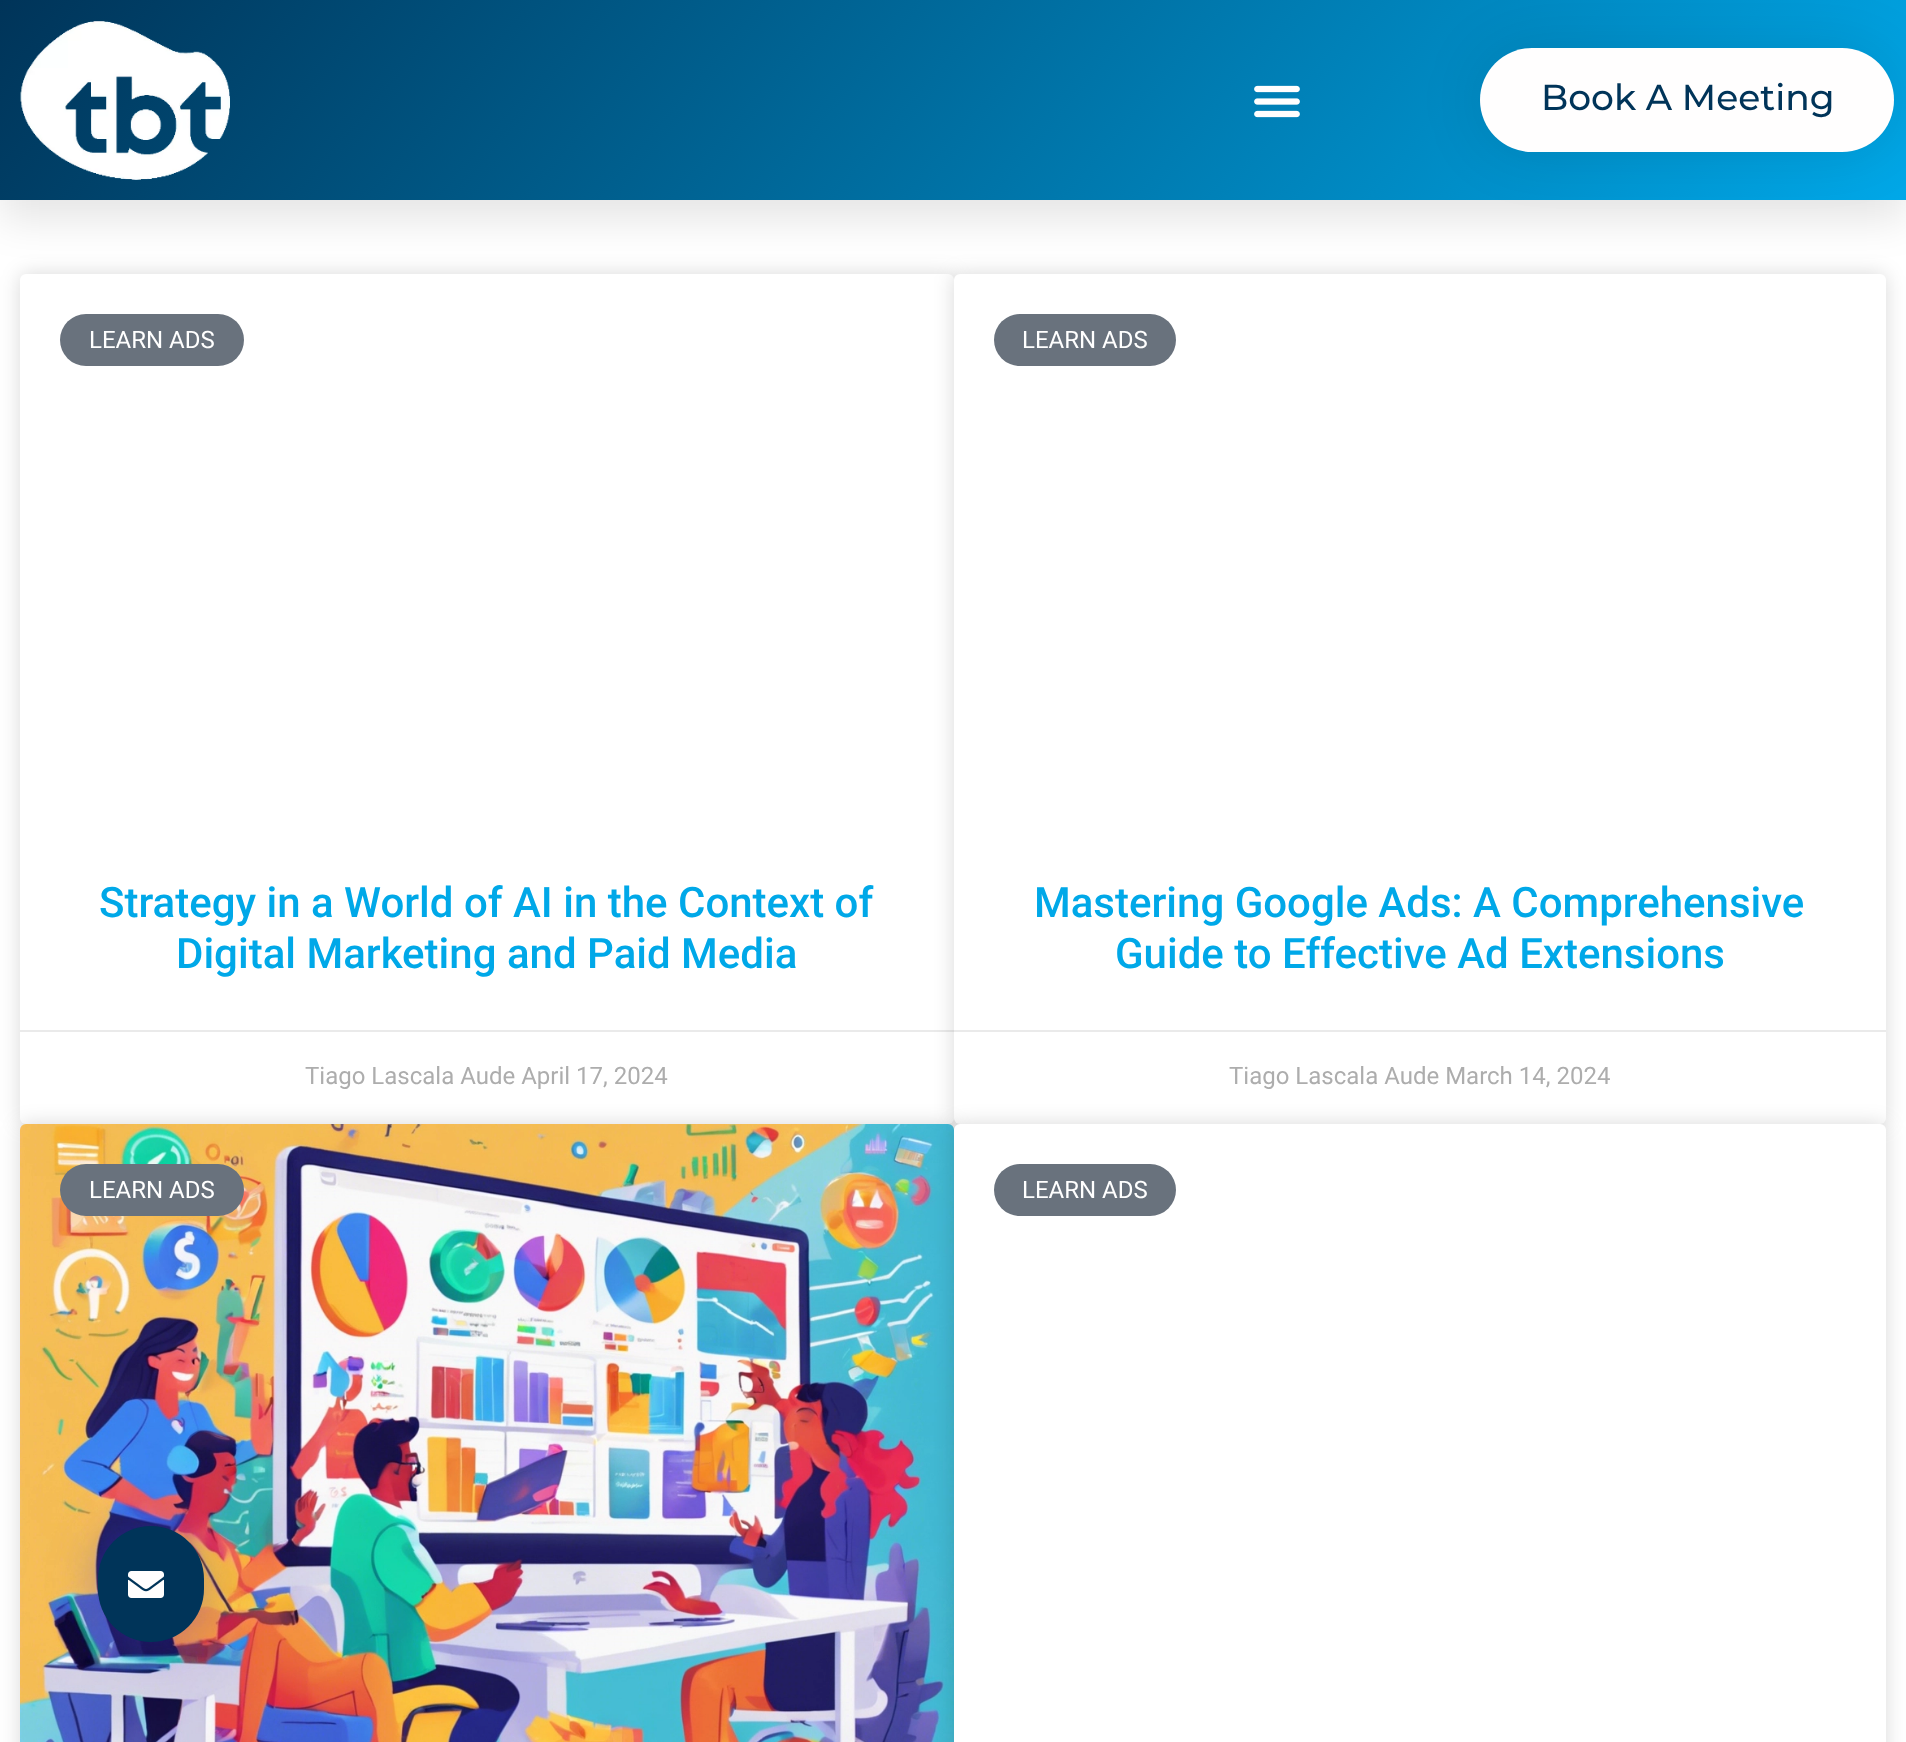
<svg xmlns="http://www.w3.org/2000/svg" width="1906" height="1742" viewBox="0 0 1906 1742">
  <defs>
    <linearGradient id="g1" gradientUnits="userSpaceOnUse" x1="345" y1="-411" x2="1561" y2="611"><stop offset="0" stop-color="#003459"/><stop offset="1" stop-color="#00a8e8"/></linearGradient>
  </defs>
  <rect width="100%" height="100%" fill="#fff"/>
  <rect x="20" y="274" width="934" height="850" rx="6" fill="#00000026" filter="blur(10px)"/>
  <rect x="20" y="274" width="934" height="850" rx="6" fill="#fff"/>
  <path d="M20 1030h934v2H20z" fill="#eaeaea"/>
  <rect x="954" y="274" width="932" height="850" rx="6" fill="#00000026" filter="blur(10px)"/>
  <rect x="954" y="274" width="932" height="850" rx="6" fill="#fff"/>
  <path d="M0 20h1906v200H0z" fill="#0000001a" filter="blur(20px)"/>
  <path d="M0 0h1906v200H0z" fill="url(#g1)"/>
  <image x="20" y="21" width="210" height="159" href="img/1.png"/>
  <image x="1254" y="85" width="46" height="33" href="img/2.png"/>
  <rect x="1480" y="48" width="414" height="104" rx="52" fill="#0000001a" filter="blur(30px)"/>
  <rect x="1480" y="48" width="414" height="104" rx="52" fill="#fffefe"/>
  <rect x="60" y="314" width="184" height="52" rx="26" fill="#69727d"/>
  <rect x="994" y="314" width="182" height="52" rx="26" fill="#69727d"/>
  <path d="M954 1030h932v2H954z" fill="#eaeaea"/>
  <rect x="20" y="1124" width="934" height="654" rx="6" fill="#00000026" filter="blur(10px)"/>
  <image x="20" y="1124" width="934" height="618" href="img/3.png"/>
  <rect x="60" y="1164" width="184" height="52" rx="26" fill="#69727d"/>
  <rect x="954" y="1124" width="932" height="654" rx="6" fill="#00000026" filter="blur(10px)"/>
  <rect x="954" y="1124" width="932" height="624" rx="6" fill="#fff"/>
  <rect x="994" y="1164" width="182" height="52" rx="26" fill="#69727d"/>
  <rect x="98" y="1526" width="106" height="116" rx="53" fill="#3538f059" filter="blur(25px)"/>
  <rect x="98" y="1526" width="106" height="116" rx="53" fill="#003459"/>
  <image x="128" y="1571" width="36" height="27" href="img/4.png"/>
  <text x="1541" y="110" font-family="Montserrat" font-size="36" font-weight="500" fill="#003459">Book A Meeting</text>
  <text x="89" y="348" font-family="Roboto" font-size="24" fill="#fff">LEARN ADS</text>
  <g font-family="Roboto" font-size="42" font-weight="500" fill="#00a8e8">
    <text x="99" y="917">Strategy in a World of AI in the Context of</text>
    <text x="176" y="968">Digital Marketing and Paid Media</text>
  </g>
  <text x="305" y="1084" font-family="Roboto" font-size="24" fill="#adadad">Tiago Lascala Aude April 17, 2024</text>
  <text x="1022" y="348" font-family="Roboto" font-size="24" fill="#fff">LEARN ADS</text>
  <g font-family="Roboto" font-size="42" font-weight="500" fill="#00a8e8">
    <text x="1034" y="917">Mastering Google Ads: A Comprehensive</text>
    <text x="1115" y="968">Guide to Effective Ad Extensions</text>
  </g>
  <text x="1229" y="1084" font-family="Roboto" font-size="24" fill="#adadad">Tiago Lascala Aude March 14, 2024</text>
  <g font-family="Roboto" font-size="24" fill="#fff">
    <text x="89" y="1198">LEARN ADS</text>
    <text x="1022" y="1198">LEARN ADS</text>
  </g>
</svg>
